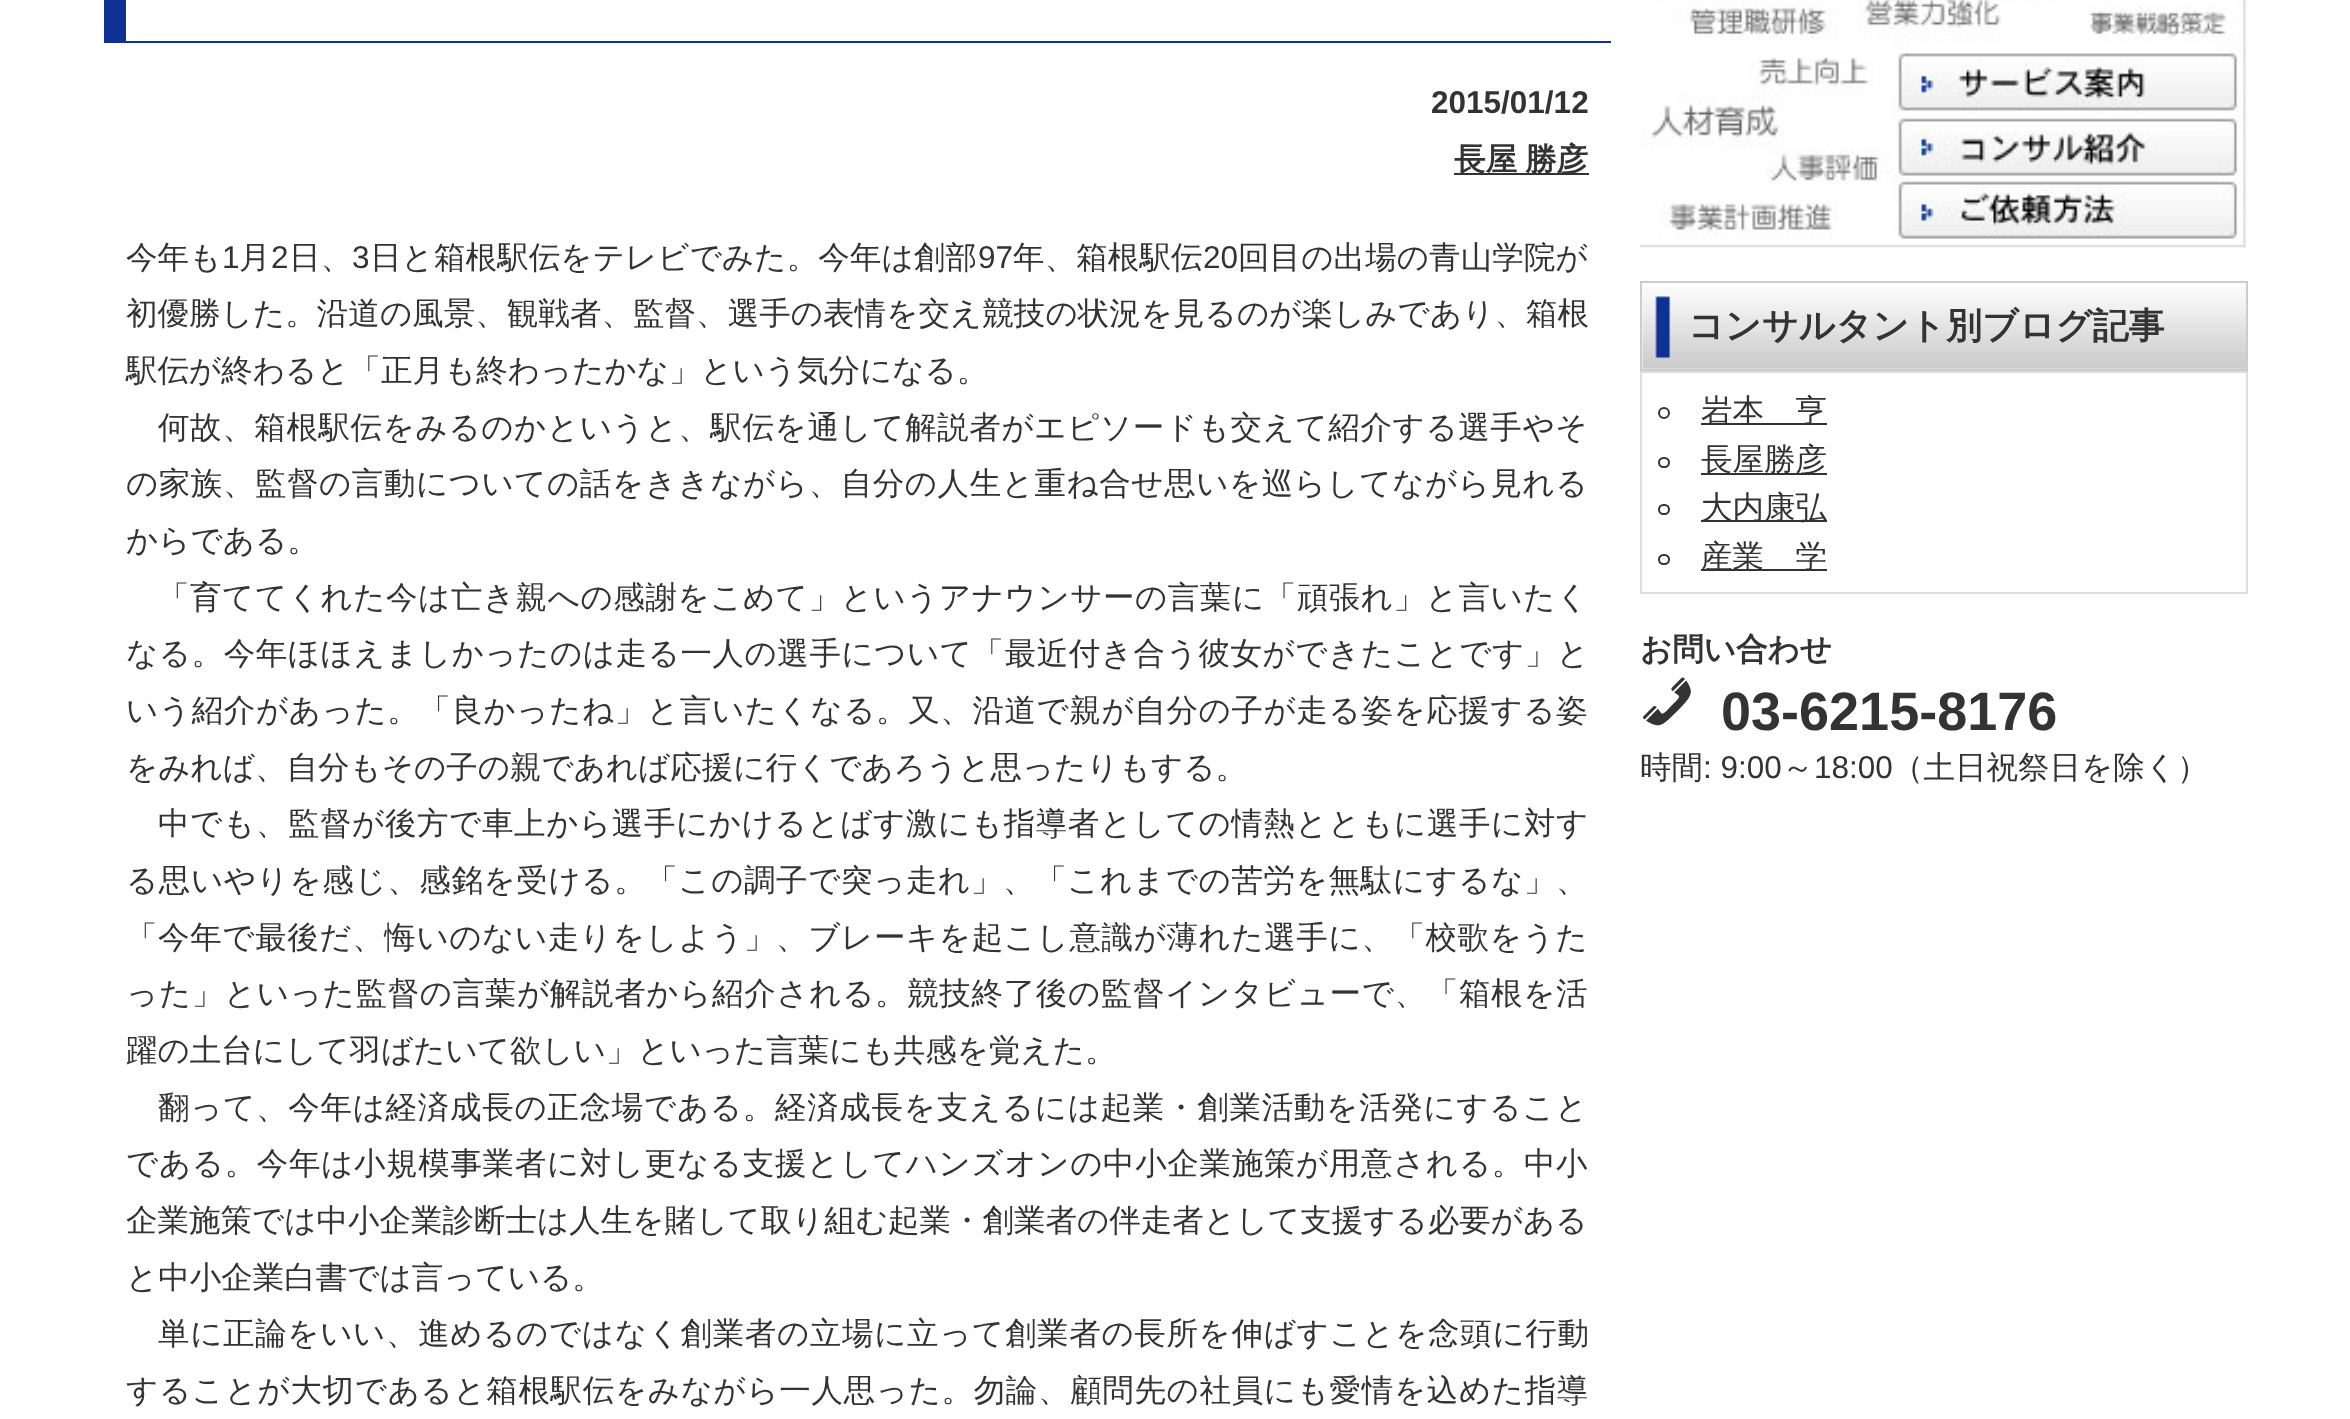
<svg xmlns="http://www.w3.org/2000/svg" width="2350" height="1419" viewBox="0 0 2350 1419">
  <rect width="100%" height="100%" fill="#fff"/>
  <path d="M126 41h1485v2H126z" fill="#0e3193"/>
  <path d="M104 0h22v43H104z" fill="#0e3193"/>
  <path d="M1454 173h135v2H1454z" fill="#333"/>
  <image x="1640" y="0" width="607" height="248" href="img/1.png"/>
  <image x="1642" y="287" width="604" height="82" href="img/2.png"/>
  <path d="M1641 282h606v88H1641z" fill="none" stroke="#ccc" stroke-width="2"/>
  <path d="M1641 372h606v221H1641z" fill="none" stroke="#ddd" stroke-width="2"/>
  <circle cx="1664" cy="413" r="5" fill="none" stroke="#333" stroke-width="2"/>
  <path d="M1701 423h126v2H1701z" fill="#333"/>
  <rect x="1659" y="458" width="10" height="9" rx="4.5" fill="none" stroke="#333" stroke-width="2"/>
  <path d="M1701 473h126v2H1701z" fill="#333"/>
  <rect x="1659" y="505" width="10" height="9" rx="4.5" fill="none" stroke="#333" stroke-width="2"/>
  <path d="M1701 520h126v2H1701z" fill="#333"/>
  <rect x="1659" y="555" width="10" height="9" rx="4.5" fill="none" stroke="#333" stroke-width="2"/>
  <path d="M1701 569h126v2H1701z" fill="#333"/>
  <image x="1643" y="677" width="48" height="49" href="img/3.png"/>
  <text x="1431" y="113" font-family="Liberation Sans" font-size="31.5" font-weight="bold" fill="#333">2015/01/12</text>
  <g font-family="WenQuanYi Zen Hei" font-size="31.5" font-weight="bold" fill="#333">
    <text x="1454" y="170">長屋</text>
    <text x="1525" y="170">勝彦</text>
  </g>
  <text x="126" y="268" font-family="WenQuanYi Zen Hei" font-size="31.5" font-weight="500" letter-spacing="0.1" fill="#333">今年も</text>
  <text x="222" y="268" font-family="Liberation Sans" font-size="31.5" letter-spacing="0.1" fill="#333">1</text>
  <text x="239" y="268" font-family="WenQuanYi Zen Hei" font-size="31.5" font-weight="500" letter-spacing="0.1" fill="#333">月</text>
  <text x="271" y="268" font-family="Liberation Sans" font-size="31.5" letter-spacing="0.1" fill="#333">2</text>
  <text x="289" y="268" font-family="WenQuanYi Zen Hei" font-size="31.5" font-weight="500" letter-spacing="0.1" fill="#333">日、</text>
  <text x="352" y="268" font-family="Liberation Sans" font-size="31.5" letter-spacing="0.1" fill="#333">3</text>
  <text x="370" y="268" font-family="WenQuanYi Zen Hei" font-size="31.5" font-weight="500" letter-spacing="0.1" fill="#333">日と箱根駅伝をテレビでみた。今年は創部</text>
  <text x="978" y="268" font-family="Liberation Sans" font-size="31.5" letter-spacing="0.1" fill="#333">97</text>
  <text x="1013" y="268" font-family="WenQuanYi Zen Hei" font-size="31.5" font-weight="500" letter-spacing="0.1" fill="#333">年、箱根駅伝</text>
  <text x="1203" y="268" font-family="Liberation Sans" font-size="31.5" letter-spacing="0.1" fill="#333">20</text>
  <text x="1238" y="268" font-family="WenQuanYi Zen Hei" font-size="31.5" font-weight="500" letter-spacing="0.1" fill="#333">回目の出場の青山学院が</text>
  <text x="126" y="324" font-family="WenQuanYi Zen Hei" font-size="31.5" font-weight="500" letter-spacing="0.05" fill="#333">初優勝した。沿道の風景、観戦者、監督、選手の表情を交え競技の状況を見るのが楽しみであり、箱根</text>
  <text x="126" y="381" font-family="WenQuanYi Zen Hei" font-size="31.5" font-weight="500" fill="#333">駅伝が終わると「正月も終わったかな」という気分になる。</text>
  <text x="158" y="438" font-family="WenQuanYi Zen Hei" font-size="31.5" font-weight="500" letter-spacing="0.6" fill="#333">何故、箱根駅伝をみるのかというと、駅伝を通して解説者がエピソードも交えて紹介する選手やそ</text>
  <text x="126" y="494" font-family="WenQuanYi Zen Hei" font-size="31.5" font-weight="500" letter-spacing="0.55" fill="#333">の家族、監督の言動についての話をききながら、自分の人生と重ね合せ思いを巡らしてながら見れる</text>
  <text x="126" y="551" font-family="WenQuanYi Zen Hei" font-size="31.5" font-weight="500" fill="#333">からである。</text>
  <g font-family="WenQuanYi Zen Hei" font-size="31.5" font-weight="500" letter-spacing="0.55" fill="#333">
    <text x="158" y="608">「育ててくれた今は亡き親への感謝をこめて」というアナウンサーの言葉に「頑張れ」と言いたく</text>
    <text x="126" y="664">なる。今年ほほえましかったのは走る一人の選手について「最近付き合う彼女ができたことです」と</text>
  </g>
  <text x="126" y="721" font-family="WenQuanYi Zen Hei" font-size="31.5" font-weight="500" letter-spacing="0.6" fill="#333">いう紹介があった。「良かったね」と言いたくなる。又、沿道で親が自分の子が走る姿を応援する姿</text>
  <text x="126" y="778" font-family="WenQuanYi Zen Hei" font-size="31.5" font-weight="500" fill="#333">をみれば、自分もその子の親であれば応援に行くであろうと思ったりもする。</text>
  <g font-family="WenQuanYi Zen Hei" font-size="31.5" font-weight="500" letter-spacing="0.6" fill="#333">
    <text x="158" y="834">中でも、監督が後方で車上から選手にかけるとばす激にも指導者としての情熱とともに選手に対す</text>
    <text x="126" y="891">る思いやりを感じ、感銘を受ける。「この調子で突っ走れ」、「これまでの苦労を無駄にするな」、</text>
    <text x="126" y="948">「今年で最後だ、悔いのない走りをしよう」、ブレーキを起こし意識が薄れた選手に、「校歌をうた</text>
  </g>
  <text x="126" y="1004" font-family="WenQuanYi Zen Hei" font-size="31.5" font-weight="500" letter-spacing="0.65" fill="#333">った」といった監督の言葉が解説者から紹介される。競技終了後の監督インタビューで、「箱根を活</text>
  <text x="126" y="1061" font-family="WenQuanYi Zen Hei" font-size="31.5" font-weight="500" fill="#333">躍の土台にして羽ばたいて欲しい」といった言葉にも共感を覚えた。</text>
  <text x="158" y="1118" font-family="WenQuanYi Zen Hei" font-size="31.5" font-weight="500" letter-spacing="0.7" fill="#333">翻って、今年は経済成長の正念場である。経済成長を支えるには起業・創業活動を活発にすること</text>
  <text x="126" y="1174" font-family="WenQuanYi Zen Hei" font-size="31.5" font-weight="500" letter-spacing="0.65" fill="#333">である。今年は小規模事業者に対し更なる支援としてハンズオンの中小企業施策が用意される。中小</text>
  <g font-family="WenQuanYi Zen Hei" font-size="31.5" font-weight="500" fill="#333">
    <text x="126" y="1231">企業施策では中小企業診断士は人生を賭して取り組む起業・創業者の伴走者として支援する必要がある</text>
    <text x="126" y="1288">と中小企業白書では言っている。</text>
  </g>
  <g font-family="WenQuanYi Zen Hei" font-size="31.5" font-weight="500" letter-spacing="0.65" fill="#333">
    <text x="158" y="1344">単に正論をいい、進めるのではなく創業者の立場に立って創業者の長所を伸ばすことを念頭に行動</text>
    <text x="126" y="1401">することが大切であると箱根駅伝をみながら一人思った。勿論、顧問先の社員にも愛情を込めた指導</text>
  </g>
  <text x="1688" y="338" font-family="WenQuanYi Zen Hei" font-size="36" font-weight="bold" fill="#333">コンサルタント別ブログ記事</text>
  <g font-family="WenQuanYi Zen Hei" font-size="31.5" font-weight="500" fill="#333">
    <text x="1701" y="421">岩本　亨</text>
    <text x="1701" y="470">長屋勝彦</text>
    <text x="1701" y="518">大内康弘</text>
    <text x="1701" y="567">産業　学</text>
  </g>
  <text x="1640" y="660" font-family="WenQuanYi Zen Hei" font-size="31.5" font-weight="bold" fill="#333">お問い合わせ</text>
  <text x="1721" y="730" font-family="Liberation Sans" font-size="54" font-weight="bold" fill="#333">03-6215-8176</text>
  <text x="1640" y="778" font-family="WenQuanYi Zen Hei" font-size="31.5" font-weight="500" fill="#333">時間</text>
  <text x="1703" y="778" font-family="Liberation Sans" font-size="31.5" fill="#333">: 9:00</text>
  <text x="1782" y="778" font-family="WenQuanYi Zen Hei" font-size="31.5" font-weight="500" fill="#333">～</text>
  <text x="1814" y="778" font-family="Liberation Sans" font-size="31.5" fill="#333">18:00</text>
  <text x="1892" y="778" font-family="WenQuanYi Zen Hei" font-size="31.5" font-weight="500" fill="#333">（土日祝祭日を除く）</text>
</svg>
